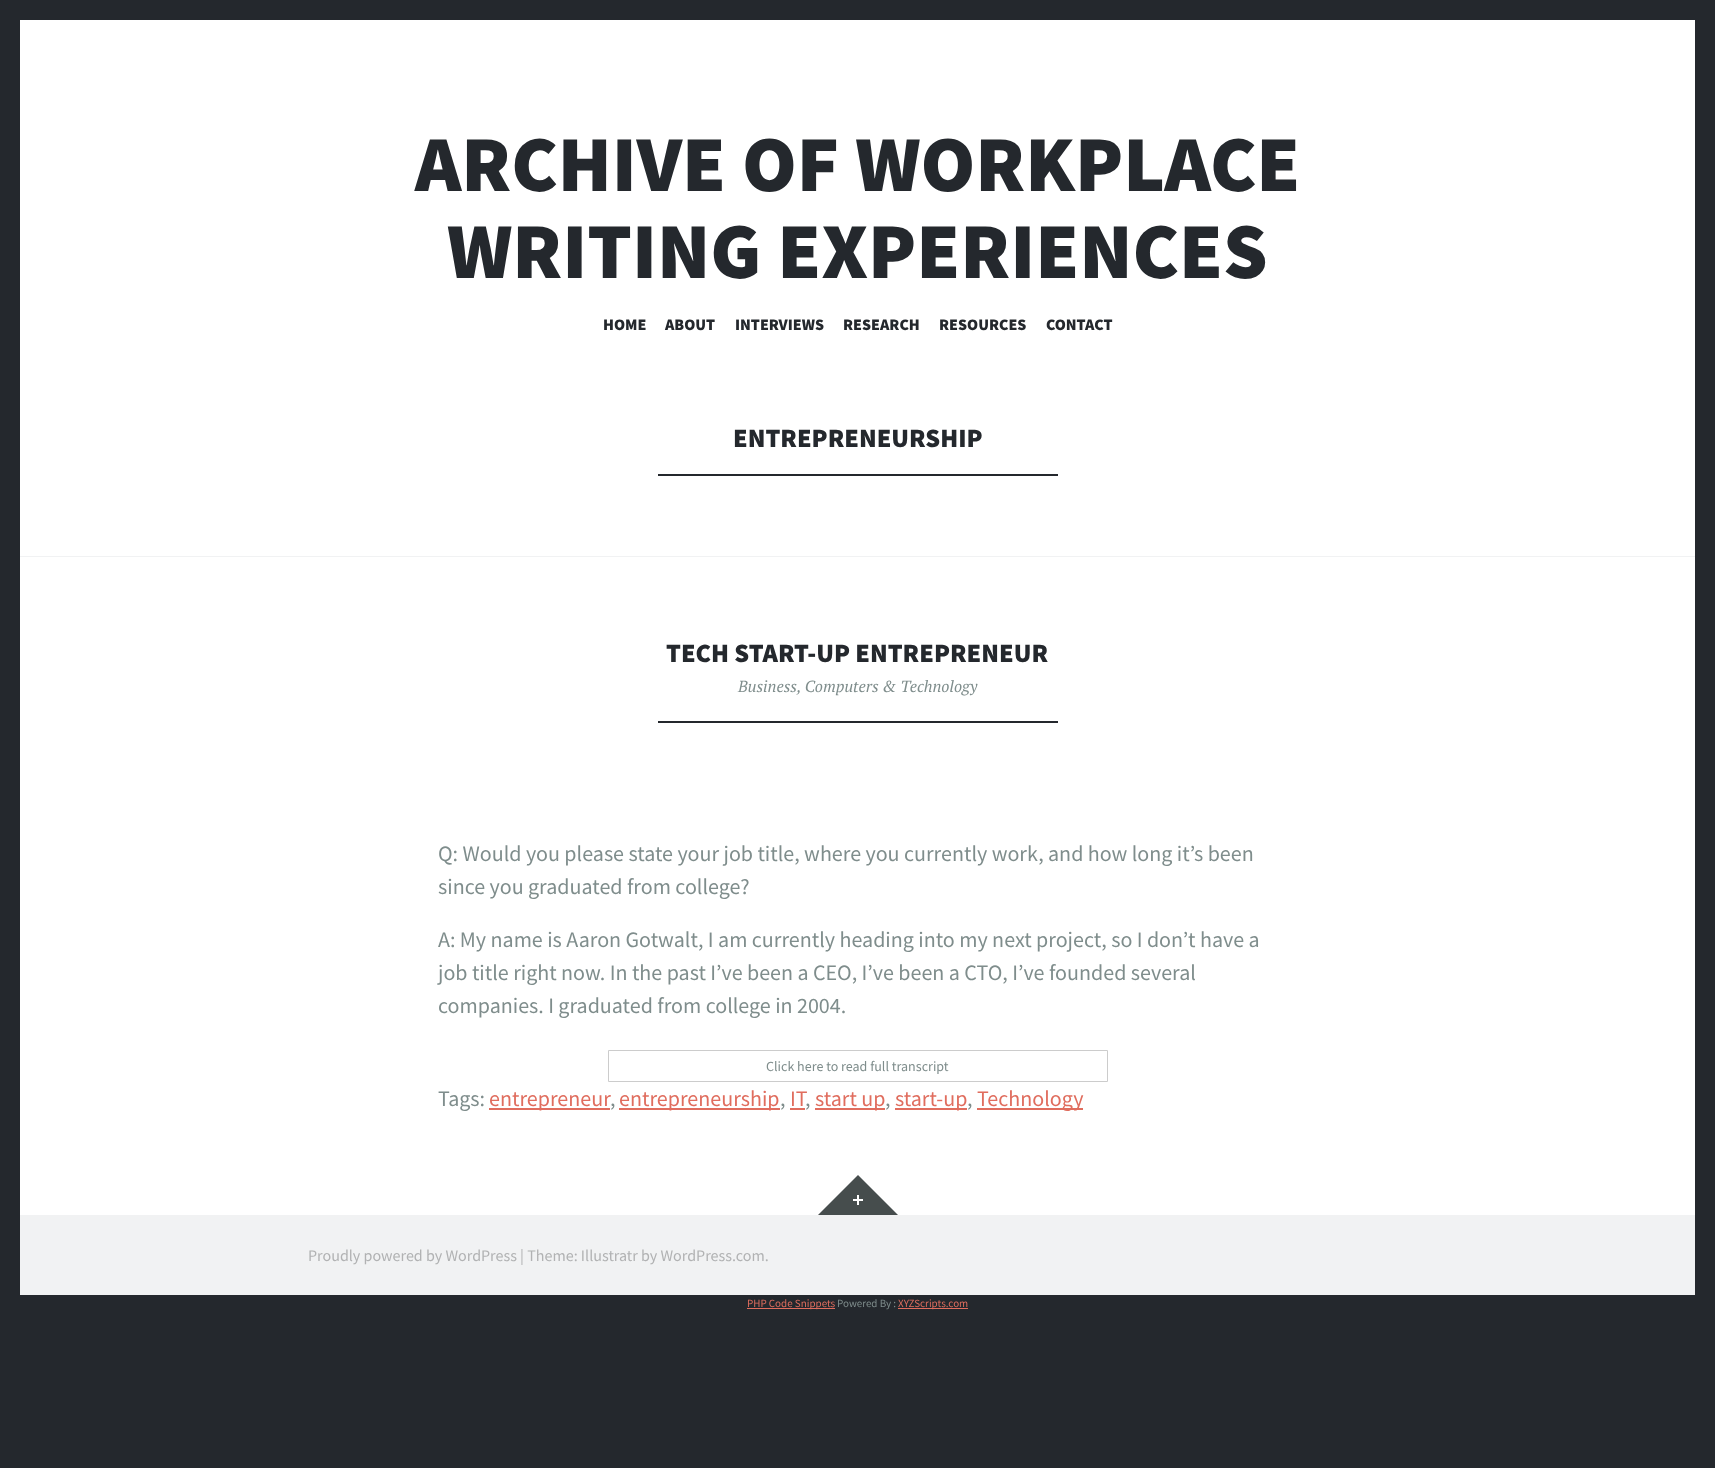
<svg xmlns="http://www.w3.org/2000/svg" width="1715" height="1468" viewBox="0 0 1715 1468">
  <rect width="100%" height="100%" fill="#24282d"/>
  <path d="M20 20h1675v1195H20z" fill="#fff"/>
  <path d="M658 474h400v2H658z" fill="#24282d"/>
  <path d="M20 556h1675v1H20z" fill="#f1f2f3"/>
  <path d="M658 721h400v2H658z" fill="#24282d"/>
  <path d="M608.5 1050.5h499v31H608.5z" fill="none" stroke="#ccc"/>
  <path d="M489 1108h121v2H489z" fill="#e06d5e"/>
  <path d="M619 1108h161v2H619z" fill="#e06d5e"/>
  <path d="M790 1108h15v2H790z" fill="#e06d5e"/>
  <path d="M815 1108h70v2H815z" fill="#e06d5e"/>
  <path d="M895 1108h72v2H895z" fill="#e06d5e"/>
  <path d="M977 1108h106v2H977z" fill="#e06d5e"/>
  <path d="M898 1215H818L858 1175Z" fill="#464d4d"/>
  <image x="853" y="1195" width="10" height="10" href="img/1.png"/>
  <path d="M20 1215h1675v80H20z" fill="#f1f2f3"/>
  <path d="M747 1308h88v1H747z" fill="#e06d5e"/>
  <path d="M898 1308h70v1H898z" fill="#e06d5e"/>
  <g font-family="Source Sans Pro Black" font-size="79.25" font-weight="900" fill="#24282d">
    <text x="415" y="191">ARCHIVE OF WORKPLACE</text>
    <text x="447" y="278">WRITING EXPERIENCES</text>
  </g>
  <g font-family="Source Sans Pro Black" font-size="16.05" font-weight="900" fill="#24282d">
    <text x="603" y="330">HOME</text>
    <text x="665" y="330">ABOUT</text>
    <text x="735" y="330">INTERVIEWS</text>
    <text x="843" y="330">RESEARCH</text>
    <text x="939" y="330">RESOURCES</text>
    <text x="1046" y="330">CONTACT</text>
  </g>
  <g font-family="Source Sans Pro Black" font-size="26.4" font-weight="900" fill="#24282d">
    <text x="733" y="447">ENTREPRENEURSHIP</text>
    <text x="666" y="662">TECH START-UP ENTREPRENEUR</text>
  </g>
  <text x="738" y="692" font-family="PT Serif" font-size="16.05" font-style="italic" fill="#7f8d8c">Business, Computers &amp; Technology</text>
  <g font-family="Source Sans Pro" font-size="22" fill="#7f8d8c">
    <text x="438" y="861">Q: Would you please state your job title, where you currently work, and how long it’s been</text>
    <text x="438" y="894">since you graduated from college?</text>
    <text x="438" y="947">A: My name is Aaron Gotwalt, I am currently heading into my next project, so I don’t have a</text>
    <text x="438" y="980">job title right now. In the past I’ve been a CEO, I’ve been a CTO, I’ve founded several</text>
    <text x="438" y="1013">companies. I graduated from college in 2004.</text>
  </g>
  <text x="766" y="1071" font-family="Source Sans Pro" font-size="14" fill="#7f8d8c">Click here to read full transcript</text>
  <text x="438" y="1106" font-family="Source Sans Pro" font-size="22" fill="#7f8d8c">Tags:</text>
  <text x="489" y="1106" font-family="Source Sans Pro" font-size="22" fill="#e06d5e">entrepreneur</text>
  <text x="610" y="1106" font-family="Source Sans Pro" font-size="22" fill="#7f8d8c">,</text>
  <text x="619" y="1106" font-family="Source Sans Pro" font-size="22" fill="#e06d5e">entrepreneurship</text>
  <text x="780" y="1106" font-family="Source Sans Pro" font-size="22" fill="#7f8d8c">,</text>
  <text x="790" y="1106" font-family="Source Sans Pro" font-size="22" fill="#e06d5e">IT</text>
  <text x="805" y="1106" font-family="Source Sans Pro" font-size="22" fill="#7f8d8c">,</text>
  <text x="815" y="1106" font-family="Source Sans Pro" font-size="22" fill="#e06d5e">start up</text>
  <text x="885" y="1106" font-family="Source Sans Pro" font-size="22" fill="#7f8d8c">,</text>
  <text x="895" y="1106" font-family="Source Sans Pro" font-size="22" fill="#e06d5e">start-up</text>
  <text x="967" y="1106" font-family="Source Sans Pro" font-size="22" fill="#7f8d8c">,</text>
  <text x="977" y="1106" font-family="Source Sans Pro" font-size="22" fill="#e06d5e">Technology</text>
  <text x="308" y="1261" font-family="Source Sans Pro" font-size="16.05" fill="#b1b2b3">Proudly powered by WordPress | Theme: Illustratr by WordPress.com.</text>
  <text x="747" y="1307" font-family="Source Sans Pro" font-size="11" fill="#e06d5e">PHP Code Snippets</text>
  <text x="837" y="1307" font-family="Source Sans Pro" font-size="11" fill="#7f8d8c">Powered By :</text>
  <text x="898" y="1307" font-family="Source Sans Pro" font-size="11" fill="#e06d5e">XYZScripts.com</text>
</svg>
